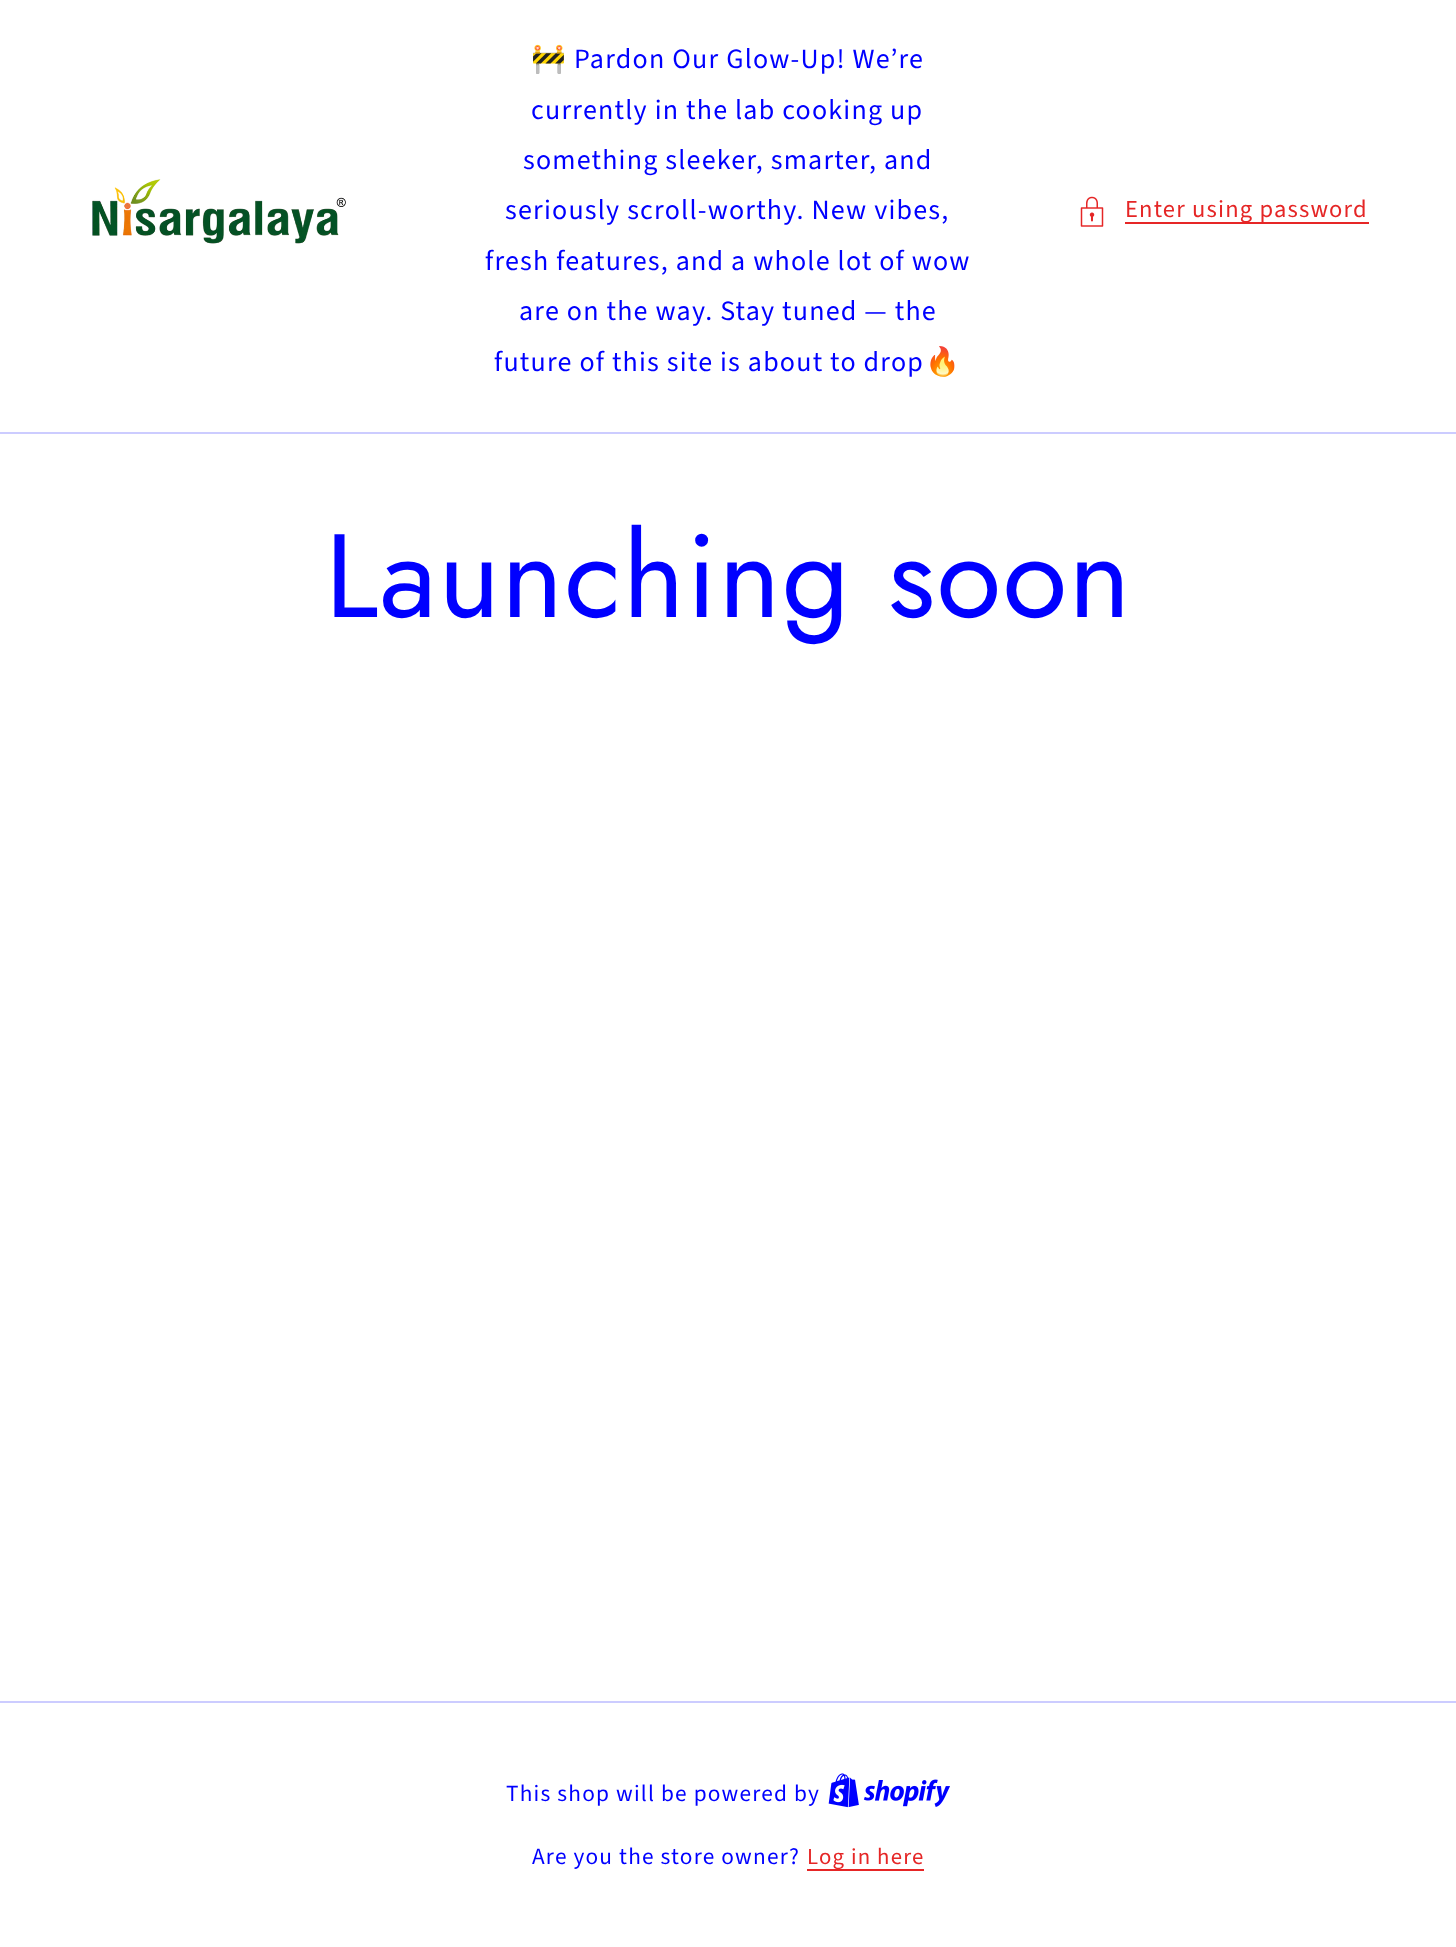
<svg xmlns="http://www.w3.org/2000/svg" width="1456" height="1947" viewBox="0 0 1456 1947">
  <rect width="100%" height="100%" fill="#fff"/>
  <image x="92" y="179" width="254" height="65" href="img/1.png"/>
  <image x="1080" y="196" width="24" height="31" href="img/2.png"/>
  <path d="M1125 222h244v2H1125z" fill="#e62626"/>
  <path d="M0 432h1456v2H0z" fill="#ccf"/>
  <path d="M0 1701h1456v2H0z" fill="#ccf"/>
  <image x="828" y="1773" width="122" height="35" href="img/3.png"/>
  <path d="M807 1869h117v2H807z" fill="#e62626"/>
  <text x="531" y="68" font-family="Noto Color Emoji" font-size="28" letter-spacing="1.2" fill="#00f">🚧</text>
  <g font-family="Source Sans Pro" font-size="28" letter-spacing="1.2" fill="#00f">
    <text x="574" y="68">Pardon Our Glow-Up! We’re</text>
    <text x="531" y="119">currently in the lab cooking up</text>
    <text x="523" y="169">something sleeker, smarter, and</text>
    <text x="505" y="219">seriously scroll-worthy. New vibes,</text>
    <text x="485" y="270">fresh features, and a whole lot of wow</text>
    <text x="519" y="320">are on the way. Stay tuned — the</text>
    <text x="494" y="371">future of this site is about to drop</text>
  </g>
  <text x="925" y="371" font-family="Noto Color Emoji" font-size="28" letter-spacing="1.2" fill="#00f">🔥</text>
  <text x="1125" y="217" font-family="Source Sans Pro" font-size="24.5" letter-spacing="1.2" fill="#e52626">Enter using password</text>
  <text x="325" y="617" font-family="Jost" font-size="118.25" letter-spacing="1.4" fill="#00f">Launching soon</text>
  <g font-family="Source Sans Pro" font-size="23.3" letter-spacing="1.2" fill="#00f">
    <text x="506" y="1801">This shop will be powered by</text>
    <text x="532" y="1864">Are you the store owner?</text>
  </g>
  <text x="807" y="1864" font-family="Source Sans Pro" font-size="22.75" letter-spacing="1.2" fill="#e52626">Log in here</text>
</svg>
